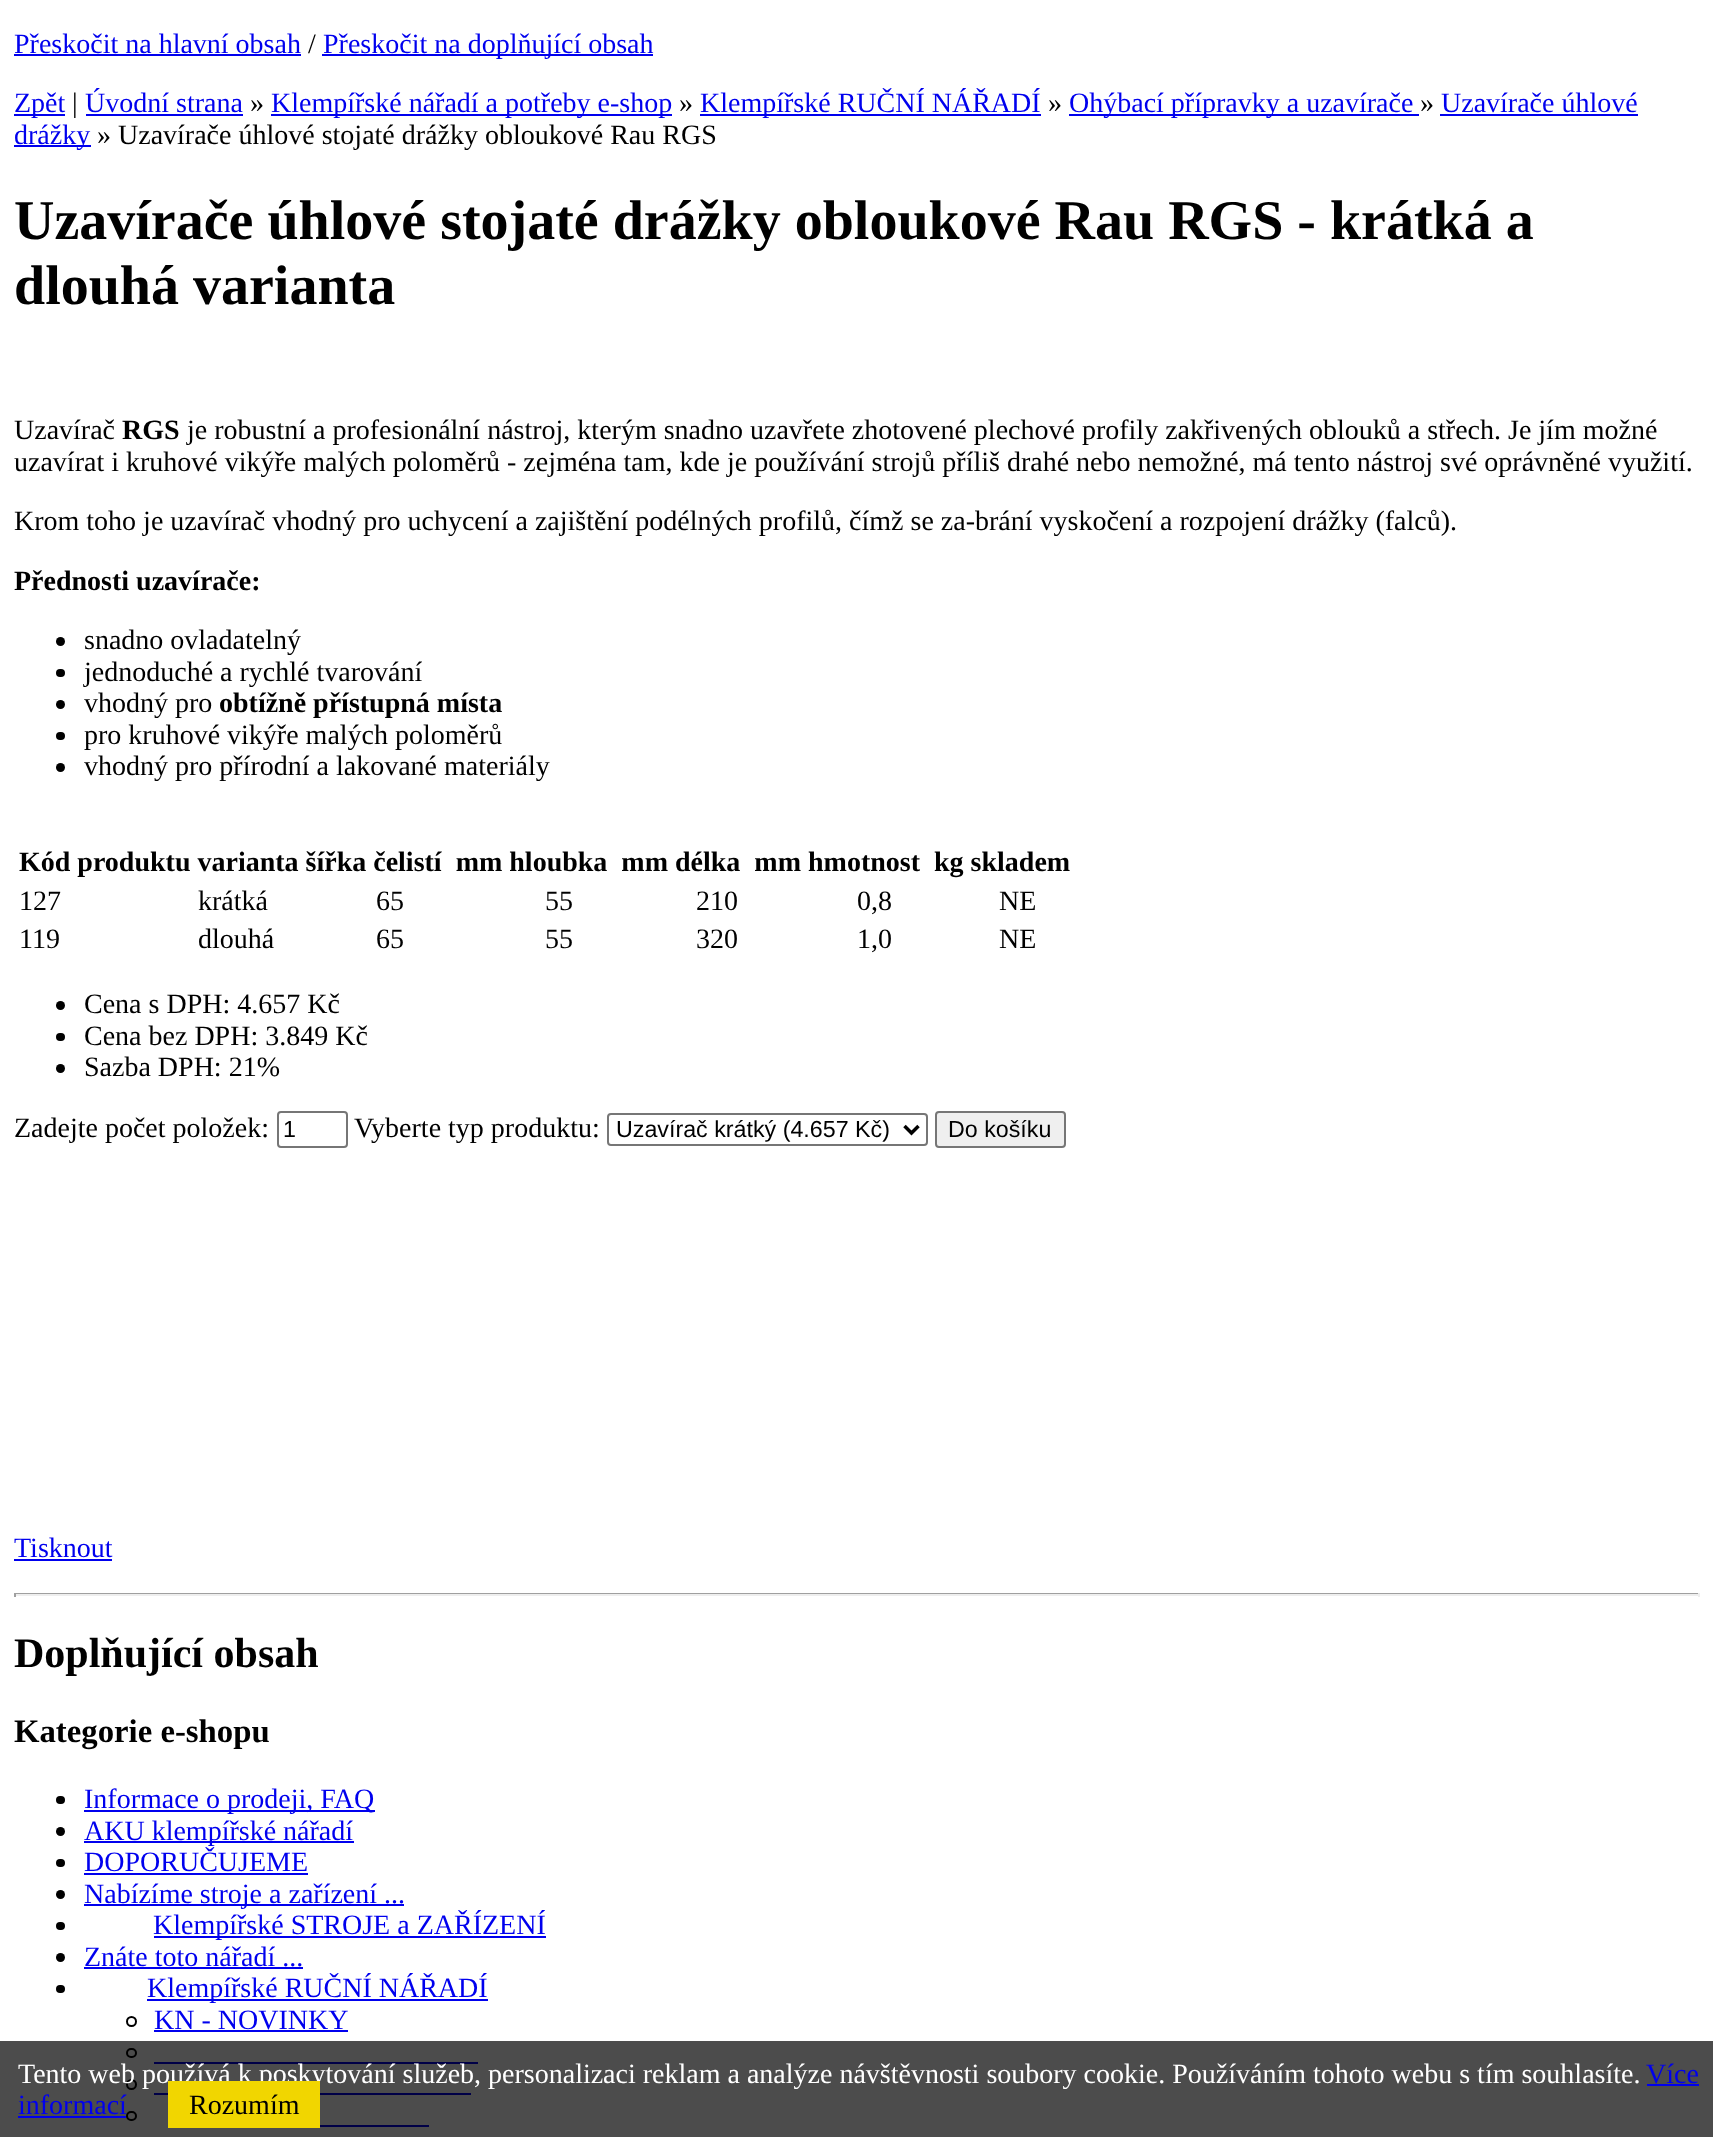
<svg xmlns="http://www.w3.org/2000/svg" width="1713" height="2137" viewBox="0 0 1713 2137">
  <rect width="100%" height="100%" fill="#fff"/>
  <path d="M14 54h287v2H14z" fill="#00e"/>
  <path d="M322 54h331v2H322z" fill="#00e"/>
  <path d="M14 114h51v2H14z" fill="#00e"/>
  <path d="M86 114h157v2H86z" fill="#00e"/>
  <path d="M271 114h401v2H271z" fill="#00e"/>
  <path d="M700 114h341v2H700z" fill="#00e"/>
  <path d="M1069 114h350v2H1069z" fill="#00e"/>
  <path d="M1440 114h198v2H1440z" fill="#00e"/>
  <path d="M14 145h77v2H14z" fill="#00e"/>
  <circle cx="60.5" cy="641.5" r="4.5" fill="#000"/>
  <rect x="56" y="669" width="9" height="8" rx="4" fill="#000"/>
  <circle cx="60.5" cy="704.5" r="4.5" fill="#000"/>
  <rect x="56" y="732" width="9" height="8" rx="4" fill="#000"/>
  <circle cx="60.5" cy="767.5" r="4.5" fill="#000"/>
  <circle cx="60.5" cy="1005.5" r="4.5" fill="#000"/>
  <rect x="56" y="1033" width="9" height="8" rx="4" fill="#000"/>
  <circle cx="60.5" cy="1068.5" r="4.5" fill="#000"/>
  <rect x="278" y="1112" width="69" height="35" rx="3" fill="none" stroke="#767676" stroke-width="2"/>
  <rect x="608" y="1114" width="319" height="31" rx="3" fill="none" stroke="#767676" stroke-width="2"/>
  <path d="M904.5 1126L911.5 1133L918.5 1126" fill="none" stroke="#000" stroke-width="3.5"/>
  <rect x="936" y="1112" width="129" height="35" rx="3" fill="#efefef" stroke="#767676" stroke-width="2"/>
  <path d="M14 1559h98v2H14z" fill="#00e"/>
  <path d="M14 1593h1685v1H14z" fill="#9f9f9f"/>
  <path d="M1698 1593h2v4H1698z" fill="#eee"/>
  <path d="M14 1594h1685v2H14z" fill="#eee"/>
  <path d="M14 1593h2v4H14z" fill="#9f9f9f"/>
  <rect x="56" y="1796" width="9" height="8" rx="4" fill="#000"/>
  <path d="M84 1810h291v2H84z" fill="#00e"/>
  <circle cx="60.5" cy="1831.5" r="4.5" fill="#000"/>
  <path d="M84 1841h270v2H84z" fill="#00e"/>
  <rect x="56" y="1859" width="9" height="8" rx="4" fill="#000"/>
  <path d="M84 1873h224v2H84z" fill="#00e"/>
  <circle cx="60.5" cy="1894.5" r="4.5" fill="#000"/>
  <path d="M84 1904h320v2H84z" fill="#00e"/>
  <rect x="56" y="1922" width="9" height="8" rx="4" fill="#000"/>
  <path d="M154 1936h392v2H154z" fill="#00e"/>
  <circle cx="60.5" cy="1957.5" r="4.5" fill="#000"/>
  <path d="M84 1967h219v2H84z" fill="#00e"/>
  <rect x="56" y="1985" width="9" height="8" rx="4" fill="#000"/>
  <path d="M147 1999h341v2H147z" fill="#00e"/>
  <circle cx="131.5" cy="2021.5" r="4.5" fill="none" stroke="#000" stroke-width="2"/>
  <path d="M154 2030h194v2H154z" fill="#00e"/>
  <rect x="127" y="2049" width="9" height="8" rx="4" fill="none" stroke="#000" stroke-width="2"/>
  <path d="M154 2062h324v2H154z" fill="#00e"/>
  <circle cx="131.5" cy="2084.5" r="4.5" fill="none" stroke="#000" stroke-width="2"/>
  <path d="M154 2093h317v2H154z" fill="#00e"/>
  <rect x="127" y="2112" width="9" height="8" rx="4" fill="none" stroke="#000" stroke-width="2"/>
  <path d="M320 2125h109v2H320z" fill="#00e"/>
  <path d="M0 2041h1713v96H0z" fill="#000000b3"/>
  <path d="M1647 2084h52v2H1647z" fill="#00e"/>
  <path d="M18 2116h108v2H18z" fill="#00e"/>
  <text x="14" y="53" font-family="Liberation Serif" font-size="28" fill="#00e">Přeskočit na hlavní obsah</text>
  <text x="308" y="53" font-family="Liberation Serif" font-size="28" fill="#000">/</text>
  <g font-family="Liberation Serif" font-size="28" fill="#00e">
    <text x="323" y="53">Přeskočit na doplňující obsah</text>
    <text x="14" y="112">Zpět</text>
  </g>
  <text x="72" y="112" font-family="Liberation Serif" font-size="28" fill="#000">|</text>
  <text x="85" y="112" font-family="Liberation Serif" font-size="28" fill="#00e">Úvodní strana</text>
  <text x="250" y="112" font-family="Liberation Serif" font-size="28" fill="#000">»</text>
  <text x="271" y="112" font-family="Liberation Serif" font-size="28" fill="#00e">Klempířské nářadí a potřeby e-shop</text>
  <text x="679" y="112" font-family="Liberation Serif" font-size="28" fill="#000">»</text>
  <text x="700" y="112" font-family="Liberation Serif" font-size="28" fill="#00e">Klempířské RUČNÍ NÁŘADÍ</text>
  <text x="1048" y="112" font-family="Liberation Serif" font-size="28" fill="#000">»</text>
  <text x="1069" y="112" font-family="Liberation Serif" font-size="28" fill="#00e">Ohýbací přípravky a uzavírače</text>
  <text x="1420" y="112" font-family="Liberation Serif" font-size="28" fill="#000">»</text>
  <g font-family="Liberation Serif" font-size="28" fill="#00e">
    <text x="1441" y="112">Uzavírače úhlové</text>
    <text x="14" y="144">drážky</text>
  </g>
  <text x="97" y="144" font-family="Liberation Serif" font-size="28" fill="#000">» Uzavírače úhlové stojaté drážky obloukové Rau RGS</text>
  <g font-family="Liberation Serif" font-size="56" font-weight="bold" fill="#000">
    <text x="14" y="239">Uzavírače úhlové stojaté drážky obloukové Rau RGS - krátká a</text>
    <text x="14" y="304">dlouhá varianta</text>
  </g>
  <text x="14" y="439" font-family="Liberation Serif" font-size="28" fill="#000">Uzavírač</text>
  <text x="122" y="439" font-family="Liberation Serif" font-size="28" font-weight="bold" fill="#000">RGS</text>
  <g font-family="Liberation Serif" font-size="28" fill="#000">
    <text x="187" y="439">je robustní a profesionální nástroj, kterým snadno uzavřete zhotovené plechové profily zakřivených oblouků a střech. Je jím možné</text>
    <text x="14" y="471">uzavírat i kruhové vikýře malých poloměrů - zejména tam, kde je používání strojů příliš drahé nebo nemožné, má tento nástroj své oprávněné využití.</text>
    <text x="14" y="530">Krom toho je uzavírač vhodný pro uchycení a zajištění podélných profilů, čímž se za-brání vyskočení a rozpojení drážky (falců).</text>
  </g>
  <text x="14" y="590" font-family="Liberation Serif" font-size="28" font-weight="bold" fill="#000">Přednosti uzavírače:</text>
  <g font-family="Liberation Serif" font-size="28" fill="#000">
    <text x="84" y="649">snadno ovladatelný</text>
    <text x="84" y="681">jednoduché a rychlé tvarování</text>
    <text x="84" y="712">vhodný pro</text>
  </g>
  <text x="219" y="712" font-family="Liberation Serif" font-size="28" font-weight="bold" fill="#000">obtížně přístupná místa</text>
  <g font-family="Liberation Serif" font-size="28" fill="#000">
    <text x="84" y="744">pro kruhové vikýře malých poloměrů</text>
    <text x="84" y="775">vhodný pro přírodní a lakované materiály</text>
  </g>
  <text x="19" y="871" font-family="Liberation Serif" font-size="28" font-weight="bold" fill="#000" xml:space="preserve">Kód produktu varianta šířka čelistí  mm hloubka  mm délka  mm hmotnost  kg skladem</text>
  <g font-family="Liberation Serif" font-size="28" fill="#000">
    <text x="19" y="910">127</text>
    <text x="198" y="910">krátká</text>
    <text x="376" y="910">65</text>
    <text x="545" y="910">55</text>
    <text x="696" y="910">210</text>
    <text x="857" y="910">0,8</text>
    <text x="999" y="910">NE</text>
    <text x="19" y="948">119</text>
    <text x="198" y="948">dlouhá</text>
    <text x="376" y="948">65</text>
    <text x="545" y="948">55</text>
    <text x="696" y="948">320</text>
    <text x="857" y="948">1,0</text>
    <text x="999" y="948">NE</text>
    <text x="84" y="1013">Cena s DPH: 4.657 Kč</text>
    <text x="84" y="1045">Cena bez DPH: 3.849 Kč</text>
    <text x="84" y="1076">Sazba DPH: 21%</text>
    <text x="14" y="1137">Zadejte počet položek:</text>
  </g>
  <text x="283" y="1137" font-family="Liberation Sans" font-size="23.25" fill="#000">1</text>
  <text x="354" y="1137" font-family="Liberation Serif" font-size="28" fill="#000">Vyberte typ produktu:</text>
  <g font-family="Liberation Sans" font-size="23.25" fill="#000">
    <text x="616" y="1137">Uzavírač krátký (4.657 Kč)</text>
    <text x="948" y="1137">Do košíku</text>
  </g>
  <text x="14" y="1557" font-family="Liberation Serif" font-size="28" fill="#00e">Tisknout</text>
  <text x="14" y="1667" font-family="Liberation Serif" font-size="42" font-weight="bold" fill="#000">Doplňující obsah</text>
  <text x="14" y="1742" font-family="Liberation Serif" font-size="32.75" font-weight="bold" fill="#000">Kategorie e-shopu</text>
  <g font-family="Liberation Serif" font-size="28" fill="#00e">
    <text x="84" y="1808">Informace o prodeji, FAQ</text>
    <text x="84" y="1840">AKU klempířské nářadí</text>
    <text x="84" y="1871">DOPORUČUJEME</text>
    <text x="84" y="1903">Nabízíme stroje a zařízení ...</text>
    <text x="153" y="1934">Klempířské STROJE a ZAŘÍZENÍ</text>
    <text x="84" y="1966">Znáte toto nářadí ...</text>
    <text x="147" y="1997">Klempířské RUČNÍ NÁŘADÍ</text>
    <text x="154" y="2029">KN - NOVINKY</text>
  </g>
  <text x="18" y="2083" font-family="Liberation Serif" font-size="28" fill="#fff">Tento web používá k poskytování služeb, personalizaci reklam a analýze návštěvnosti soubory cookie. Používáním tohoto webu s tím souhlasíte.</text>
  <g font-family="Liberation Serif" font-size="28" fill="#00e">
    <text x="1646" y="2083">Více</text>
    <text x="18" y="2114">informací</text>
  </g>
  <path d="M168 2081h152v47H168z" fill="#f1d600"/>
  <text x="189" y="2114" font-family="Liberation Serif" font-size="28" fill="#000">Rozumím</text>
</svg>
